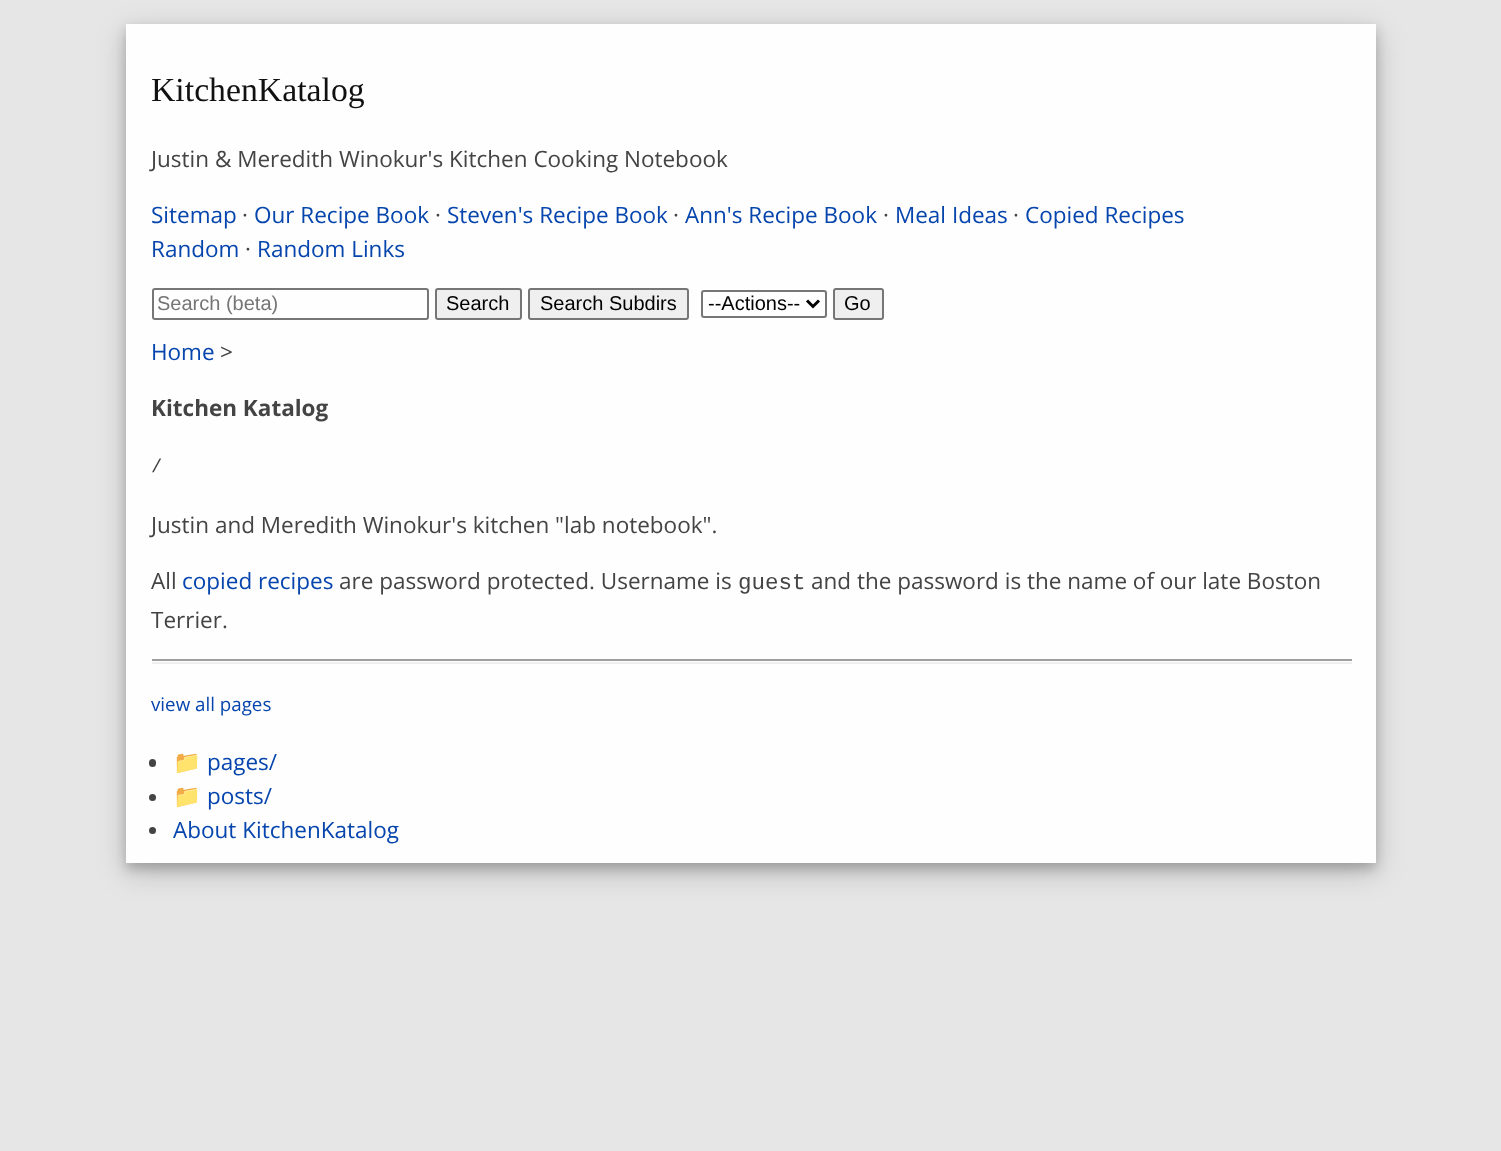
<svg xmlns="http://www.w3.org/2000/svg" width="1501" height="1151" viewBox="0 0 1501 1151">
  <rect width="100%" height="100%" fill="#e6e6e6"/>
  <path d="M126 33h1250v839H126z" fill="#00000030" filter="blur(15px)"/>
  <path d="M126 30h1250v839H126z" fill="#00000033" filter="blur(6px)"/>
  <path d="M126 24h1250v839H126z" fill="#fefefe"/>
  <rect x="153" y="289" width="275" height="30" rx="2" fill="none" stroke="#767676" stroke-width="2"/>
  <rect x="436" y="289" width="85" height="30" rx="2" fill="#efefef" stroke="#767676" stroke-width="2"/>
  <rect x="529" y="289" width="159" height="30" rx="2" fill="#efefef" stroke="#767676" stroke-width="2"/>
  <rect x="702" y="291" width="124" height="26" rx="2" fill="none" stroke="#767676" stroke-width="2"/>
  <path d="M807 300.5L813 306.5L819 300.5" fill="none" stroke="#000" stroke-width="3"/>
  <rect x="834" y="289" width="49" height="30" rx="2" fill="#efefef" stroke="#767676" stroke-width="2"/>
  <path d="M152 659h1200v2H152z" fill="#9f9f9f"/>
  <path d="M152 662h1200v2H152z" fill="#eee"/>
  <rect x="149" y="759" width="7" height="8" rx="3.5" fill="#444"/>
  <circle cx="152.5" cy="797.5" r="3.5" fill="#444"/>
  <circle cx="152.5" cy="830.5" r="3.5" fill="#444"/>
  <text x="151" y="101" font-family="Liberation Serif" font-size="33.75" fill="#111">KitchenKatalog</text>
  <text x="151" y="167" font-family="Open Sans" font-size="22.5" fill="#444">Justin &amp; Meredith Winokur's Kitchen Cooking Notebook</text>
  <text x="151" y="223" font-family="Open Sans" font-size="22.5" fill="#0645ad">Sitemap</text>
  <text x="242" y="223" font-family="Open Sans" font-size="22.5" fill="#444">·</text>
  <text x="254" y="223" font-family="Open Sans" font-size="22.5" fill="#0645ad">Our Recipe Book</text>
  <text x="435" y="223" font-family="Open Sans" font-size="22.5" fill="#444">·</text>
  <text x="447" y="223" font-family="Open Sans" font-size="22.5" fill="#0645ad">Steven's Recipe Book</text>
  <text x="673" y="223" font-family="Open Sans" font-size="22.5" fill="#444">·</text>
  <text x="685" y="223" font-family="Open Sans" font-size="22.5" fill="#0645ad">Ann's Recipe Book</text>
  <text x="883" y="223" font-family="Open Sans" font-size="22.5" fill="#444">·</text>
  <text x="895" y="223" font-family="Open Sans" font-size="22.5" fill="#0645ad">Meal Ideas</text>
  <text x="1013" y="223" font-family="Open Sans" font-size="22.5" fill="#444">·</text>
  <g font-family="Open Sans" font-size="22.5" fill="#0645ad">
    <text x="1025" y="223">Copied Recipes</text>
    <text x="151" y="257">Random</text>
  </g>
  <text x="245" y="257" font-family="Open Sans" font-size="22.5" fill="#444">·</text>
  <text x="257" y="257" font-family="Open Sans" font-size="22.5" fill="#0645ad">Random Links</text>
  <text x="157" y="310" font-family="Liberation Sans" font-size="20" fill="#757575">Search (beta)</text>
  <g font-family="Liberation Sans" font-size="20" fill="#000">
    <text x="446" y="310">Search</text>
    <text x="540" y="310">Search Subdirs</text>
    <text x="708" y="310">--Actions--</text>
    <text x="844" y="310">Go</text>
  </g>
  <text x="151" y="360" font-family="Open Sans" font-size="22.5" fill="#0645ad">Home</text>
  <text x="220" y="360" font-family="Open Sans" font-size="22.5" fill="#444">&gt;</text>
  <text x="151" y="416" font-family="Open Sans" font-size="22.5" font-weight="bold" fill="#444">Kitchen Katalog</text>
  <text x="151" y="472" font-family="Liberation Mono" font-size="18.75" fill="#444">/</text>
  <g font-family="Open Sans" font-size="22.5" fill="#444">
    <text x="151" y="533">Justin and Meredith Winokur's kitchen "lab notebook".</text>
    <text x="151" y="589">All</text>
  </g>
  <text x="182" y="589" font-family="Open Sans" font-size="22.5" fill="#0645ad">copied recipes</text>
  <text x="339" y="589" font-family="Open Sans" font-size="22.5" fill="#444">are password protected. Username is</text>
  <text x="738" y="589" font-family="Liberation Mono" font-size="22.5" fill="#444">guest</text>
  <g font-family="Open Sans" font-size="22.5" fill="#444">
    <text x="811" y="589">and the password is the name of our late Boston</text>
    <text x="151" y="628">Terrier.</text>
  </g>
  <text x="151" y="711" font-family="Open Sans" font-size="18.75" fill="#0645ad">view all pages</text>
  <text x="173" y="770" font-family="Noto Color Emoji" font-size="22.5" fill="#0645ad">📁</text>
  <text x="207" y="770" font-family="Open Sans" font-size="22.5" fill="#0645ad">pages/</text>
  <text x="173" y="804" font-family="Noto Color Emoji" font-size="22.5" fill="#0645ad">📁</text>
  <g font-family="Open Sans" font-size="22.5" fill="#0645ad">
    <text x="207" y="804">posts/</text>
    <text x="173" y="838">About KitchenKatalog</text>
  </g>
</svg>
